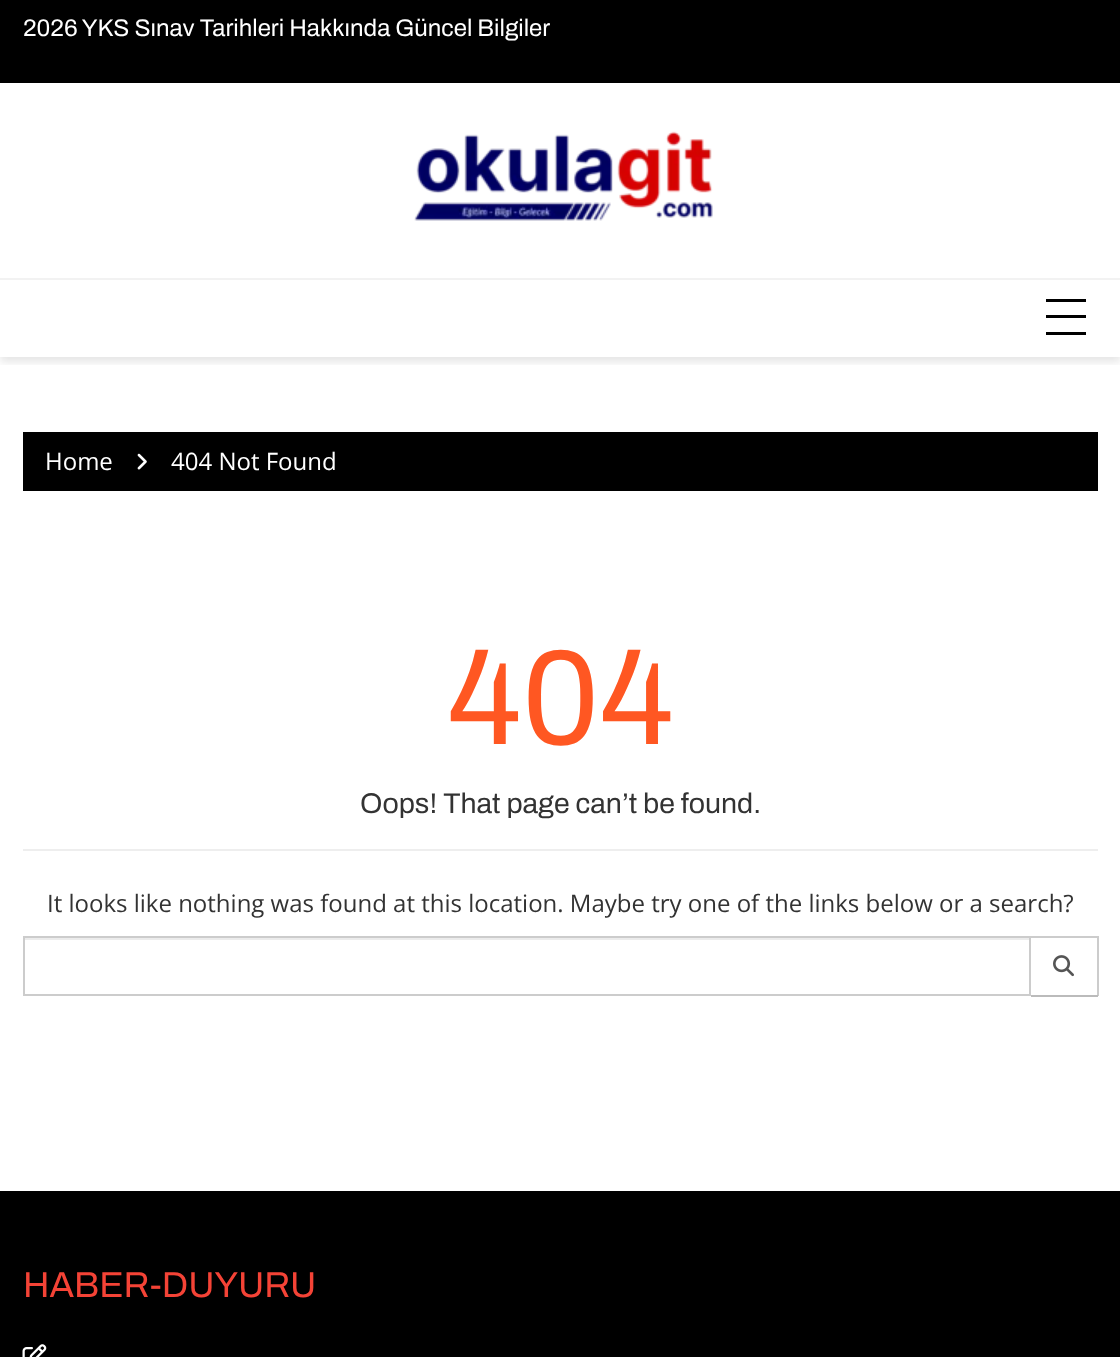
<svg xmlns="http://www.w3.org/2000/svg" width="1120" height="1357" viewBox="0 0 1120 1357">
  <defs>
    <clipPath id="clip1"><path d="M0 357h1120v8H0z"/></clipPath>
  </defs>
  <rect width="100%" height="100%" fill="#fff"/>
  <path d="M0 0h1120v83H0z" fill="#000"/>
  <image x="414" y="131" width="299" height="90" href="img/1.png"/>
  <g clip-path="url(#clip1)">
    <path d="M0 282h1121v80H0z" fill="#0000001a" filter="blur(4px)"/>
  </g>
  <path d="M0 278h1120v2H0z" fill="#f2f2f2"/>
  <path d="M1046 299h40v3H1046z" fill="#000"/>
  <path d="M1046 315h40v3H1046z" fill="#000"/>
  <path d="M1046 332h40v3H1046z" fill="#000"/>
  <path d="M23 432h1075v59H23z" fill="#000"/>
  <image x="137" y="453" width="10" height="17" href="img/2.png"/>
  <path d="M23 849h1075v2H23z" fill="#eee"/>
  <path d="M24 938h1005v2H24z" fill="#ececec"/>
  <path d="M24 937h1006v58H24z" fill="none" stroke="#ccc" stroke-width="2"/>
  <path d="M1031 936h67v2H1031z" fill="#ccc"/>
  <path d="M1097 936h2v60H1097z" fill="#ccc"/>
  <path d="M1031 995h67v2H1031z" fill="#bbb"/>
  <image x="1053" y="955" width="21" height="22" href="img/3.png"/>
  <path d="M0 1191h1120v166H0z" fill="#000"/>
  <image x="22" y="1344" width="25" height="13" href="img/4.png"/>
  <text x="23" y="36" font-family="Archivo" font-size="24" font-weight="600" fill="#fff">2026 YKS Sınav Tarihleri Hakkında Güncel Bilgiler</text>
  <g font-family="Open Sans" font-size="24" fill="#fff">
    <text x="45" y="470">Home</text>
    <text x="171" y="470">404 Not Found</text>
  </g>
  <text x="447" y="744" font-family="Archivo" font-size="135" font-weight="600" fill="#ff5722">404</text>
  <text x="360" y="813" font-family="Archivo" font-size="28.5" font-weight="600" fill="#333">Oops! That page can’t be found.</text>
  <text x="47" y="912" font-family="Open Sans" font-size="24" fill="#333">It looks like nothing was found at this location. Maybe try one of the links below or a search?</text>
  <text x="23" y="1297" font-family="Archivo" font-size="36" font-weight="600" fill="#f44336">HABER-DUYURU</text>
</svg>
